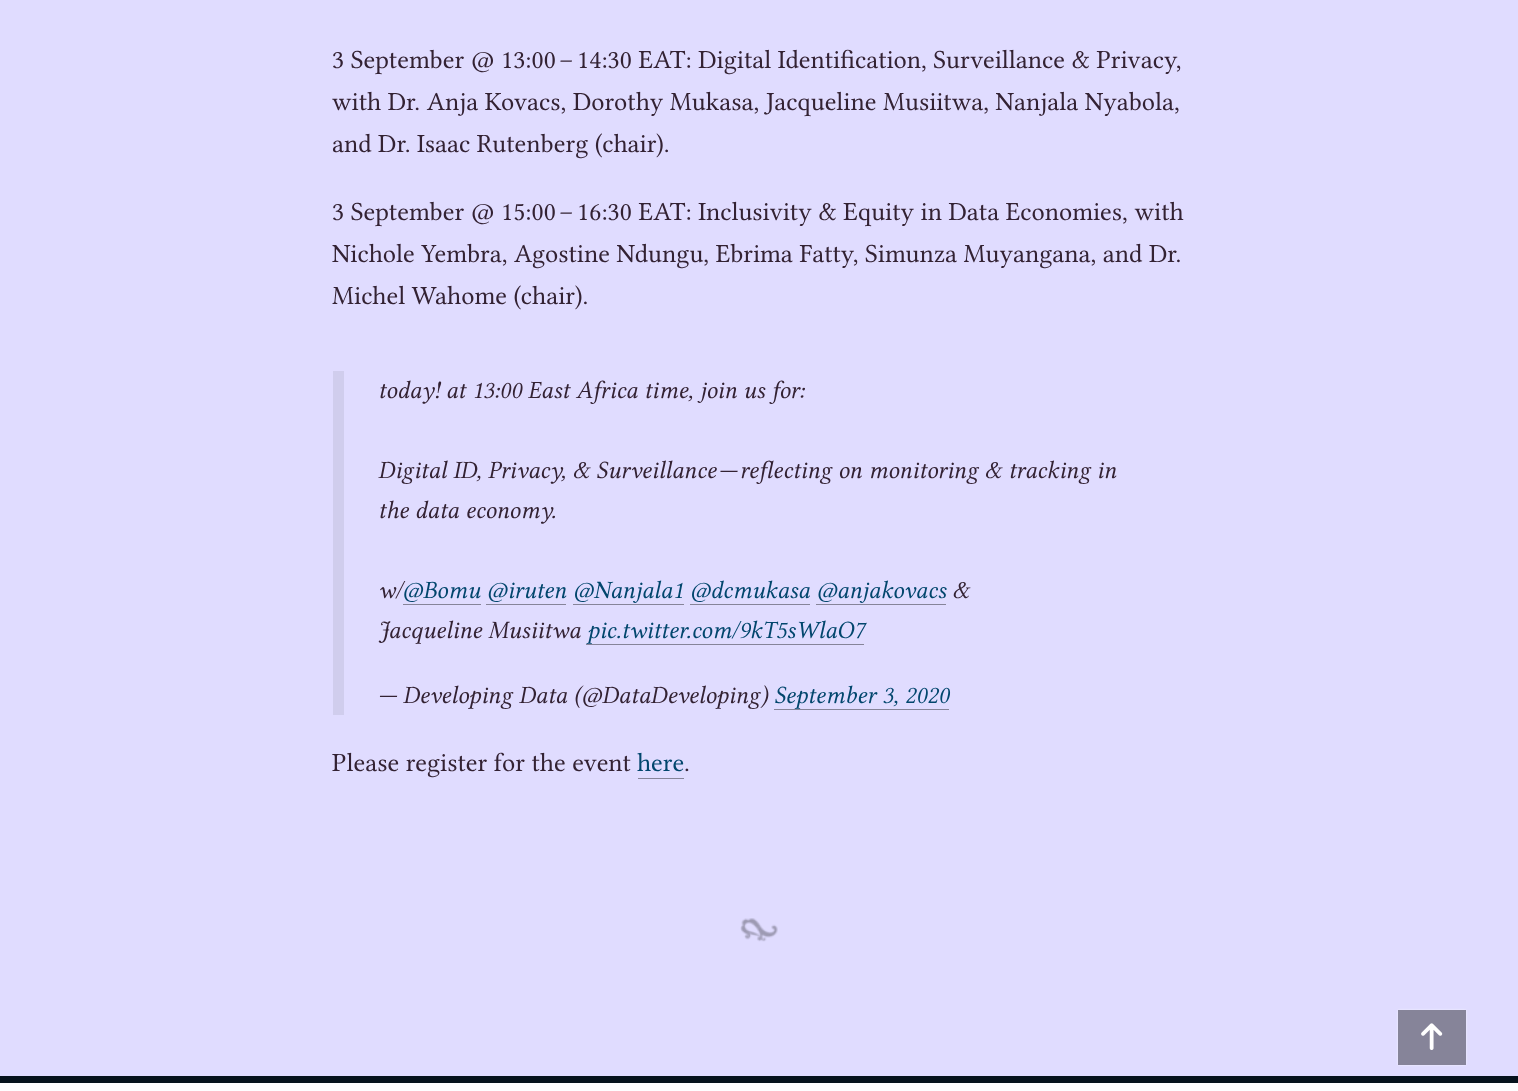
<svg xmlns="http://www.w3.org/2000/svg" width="1518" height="1091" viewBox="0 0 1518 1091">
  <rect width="100%" height="100%" fill="#06121c"/>
  <path d="M0 0h1518v1076H0z" fill="#e0dcff"/>
  <path d="M333 371h11v344H333z" fill="#d0cded"/>
  <path d="M403 604h78v1H403z" fill="#868499"/>
  <path d="M486 604h80v1H486z" fill="#868499"/>
  <path d="M573 604h111v1H573z" fill="#868499"/>
  <path d="M690 604h120v1H690z" fill="#868499"/>
  <path d="M816 604h130v1H816z" fill="#868499"/>
  <path d="M586 644h278v1H586z" fill="#868499"/>
  <path d="M774 709h175v1H774z" fill="#868499"/>
  <path d="M638 778h46v1H638z" fill="#868499"/>
  <image x="740" y="918" width="38" height="24" href="img/1.png"/>
  <path d="M0 1083h1518v8H0z" fill="#fefeff"/>
  <path d="M1398 1010h68v55H1398z" fill="#ffffffb3" filter="blur(1px)"/>
  <path d="M1398 1010h68v55H1398z" fill="#868499"/>
  <image x="1421" y="1023" width="22" height="27" href="img/2.png"/>
  <g font-family="Libertinus Serif" font-size="26.25" fill="#323">
    <text x="332" y="68">3 September @ 13:00</text>
    <text x="559" y="68">–</text>
    <text x="577" y="68">14:30 EAT: Digital Identification, Surveillance &amp; Privacy,</text>
    <text x="332" y="110">with Dr. Anja Kovacs, Dorothy Mukasa, Jacqueline Musiitwa, Nanjala Nyabola,</text>
    <text x="332" y="152">and Dr. Isaac Rutenberg (chair).</text>
    <text x="332" y="220">3 September @ 15:00</text>
    <text x="559" y="220">–</text>
    <text x="577" y="220">16:30 EAT: Inclusivity &amp; Equity in Data Economies, with</text>
    <text x="332" y="262">Nichole Yembra, Agostine Ndungu, Ebrima Fatty, Simunza Muyangana, and Dr.</text>
    <text x="332" y="304">Michel Wahome (chair).</text>
  </g>
  <g font-family="Libertinus Serif" font-size="24.95" font-style="italic" fill="#323">
    <text x="378" y="398">today! at 13:00 East Africa time, join us for:</text>
    <text x="378" y="478">Digital ID</text>
    <text x="476" y="478">, Privacy, &amp; Surveillance — reflecting on monitoring &amp; tracking in</text>
    <text x="378" y="518">the data economy.</text>
    <text x="378" y="598">w/</text>
  </g>
  <text x="402" y="598" font-family="Libertinus Serif" font-size="24.95" font-style="italic" fill="#02466d">@Bomu @iruten @Nanjala1 @dcmukasa @anjakovacs</text>
  <g font-family="Libertinus Serif" font-size="24.95" font-style="italic" fill="#323">
    <text x="952" y="598">&amp;</text>
    <text x="378" y="638">Jacqueline Musiitwa</text>
  </g>
  <text x="587" y="638" font-family="Libertinus Serif" font-size="24.95" font-style="italic" fill="#02466d">pic.twitter.com/9kT5sWlaO7</text>
  <text x="378" y="703" font-family="Libertinus Serif" font-size="24.95" font-style="italic" fill="#323">— Developing Data (@DataDeveloping)</text>
  <text x="774" y="703" font-family="Libertinus Serif" font-size="24.95" font-style="italic" fill="#02466d">September 3, 2020</text>
  <text x="332" y="771" font-family="Libertinus Serif" font-size="26.25" fill="#323">Please register for the event</text>
  <text x="637" y="771" font-family="Libertinus Serif" font-size="26.25" fill="#02466d">here</text>
  <text x="684" y="771" font-family="Libertinus Serif" font-size="26.25" fill="#323">.</text>
</svg>
